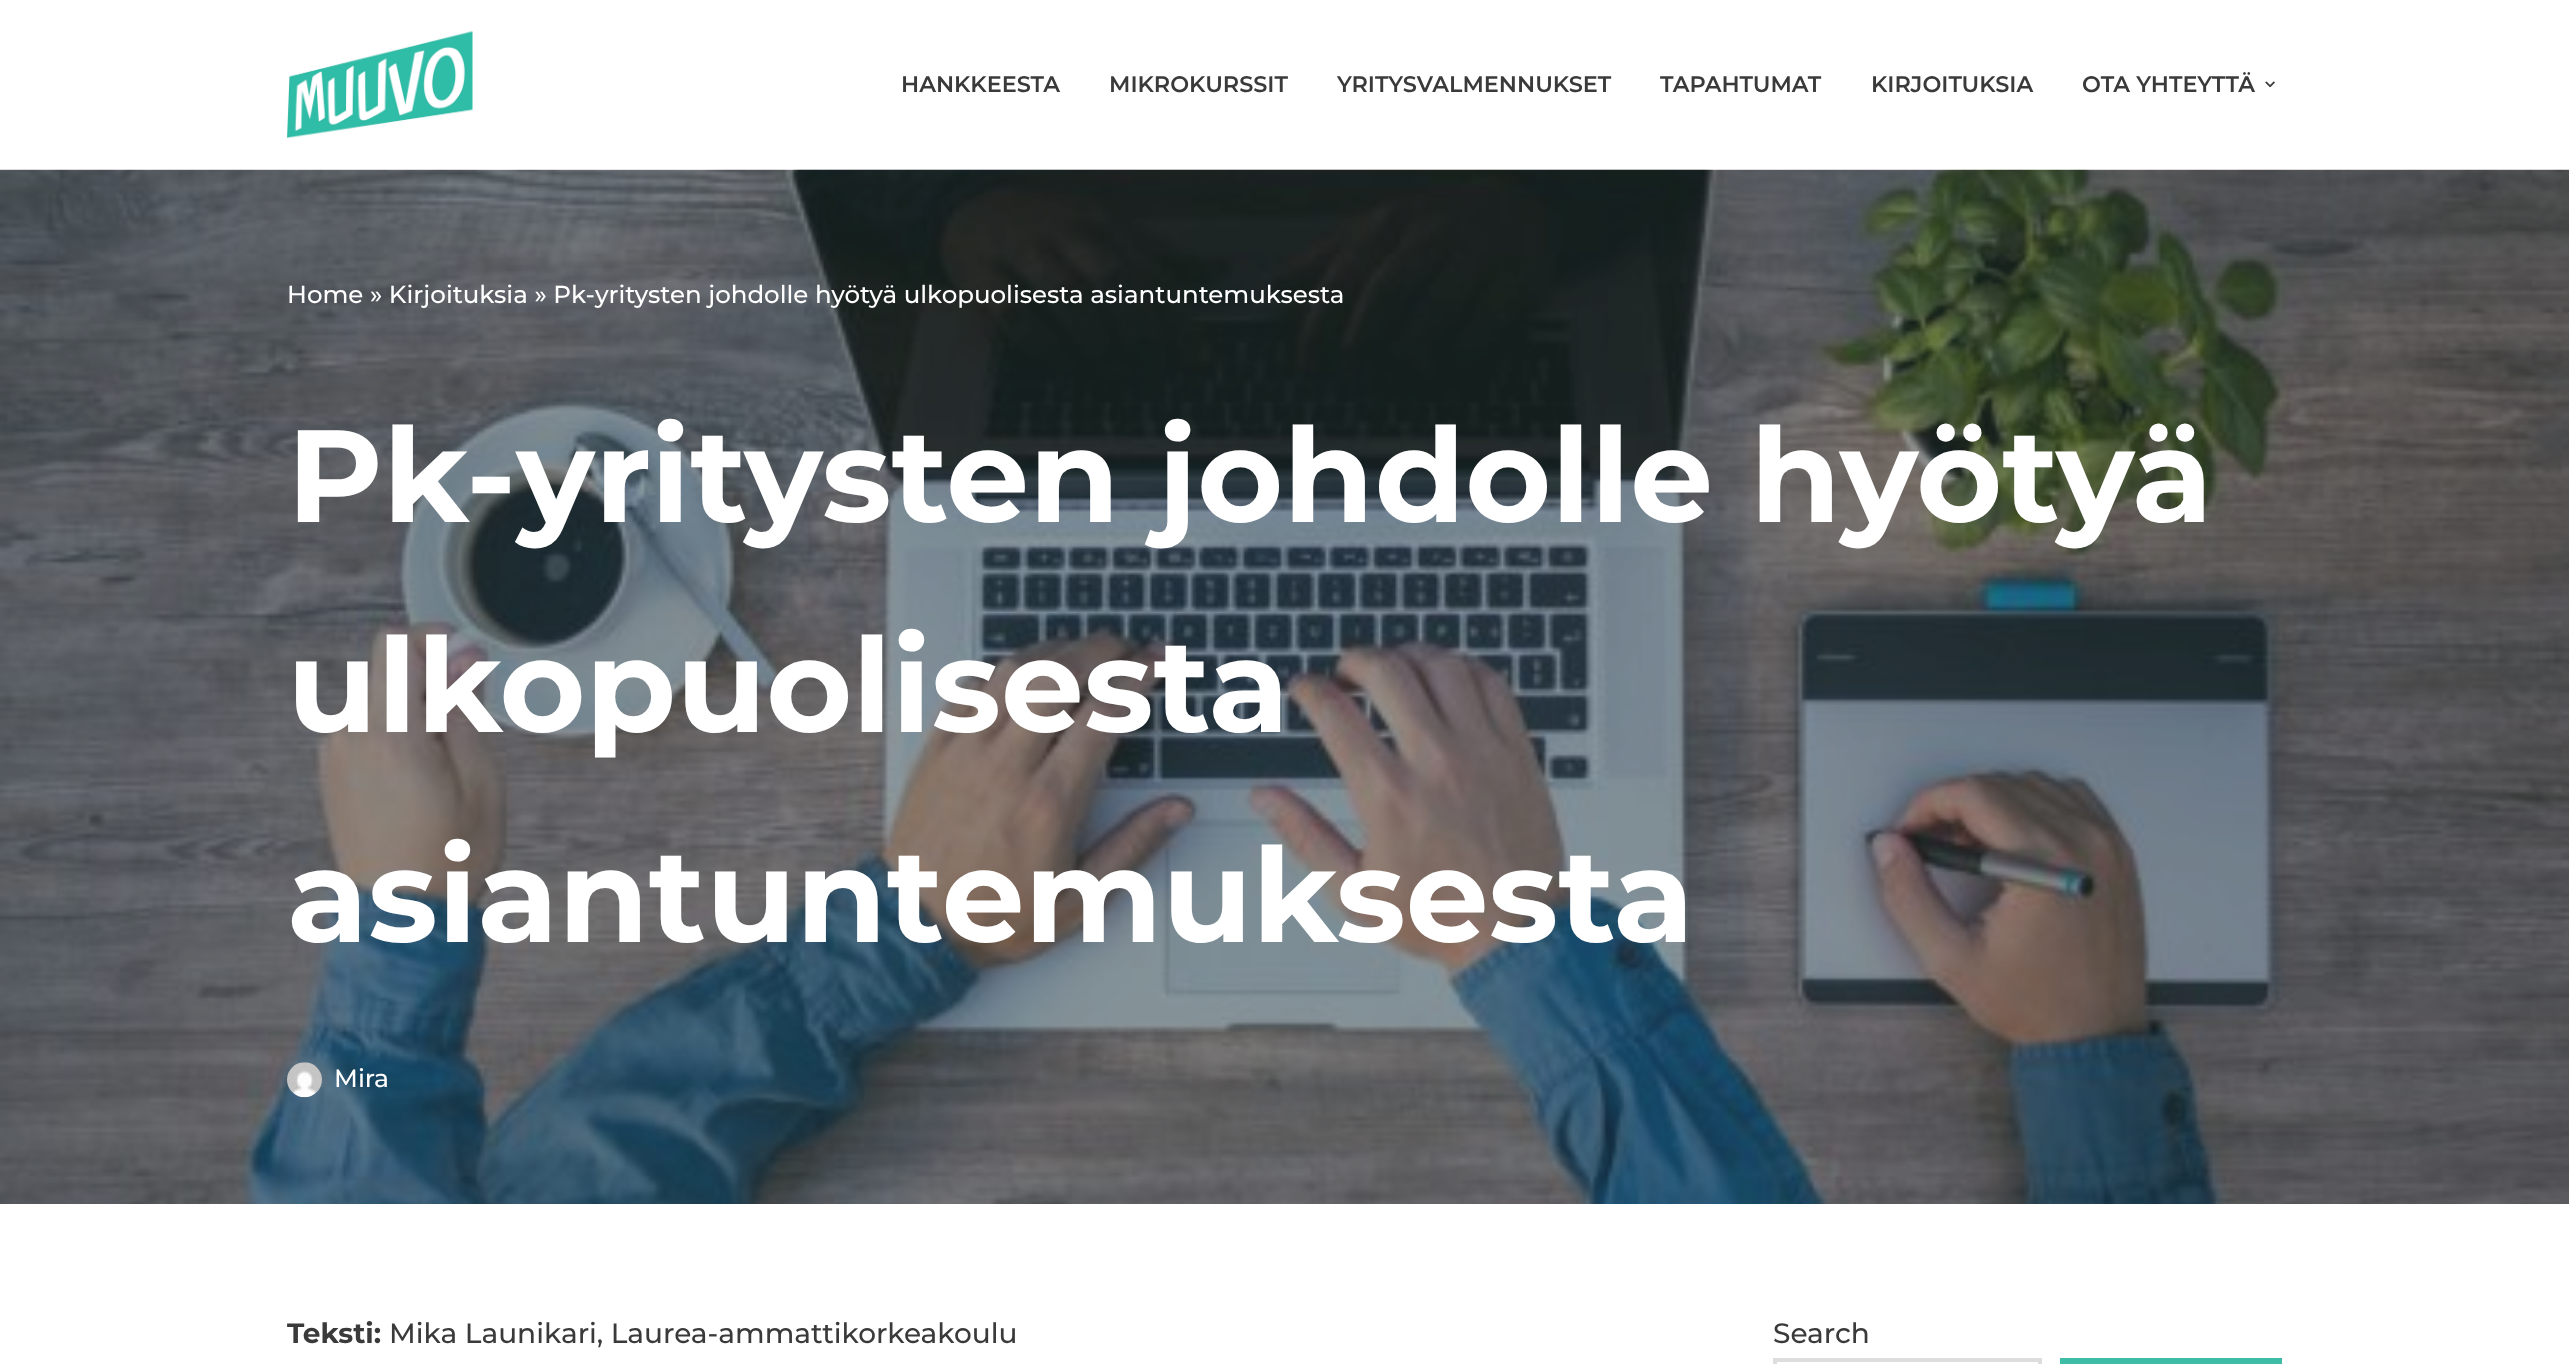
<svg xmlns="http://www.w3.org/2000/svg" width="2569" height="1364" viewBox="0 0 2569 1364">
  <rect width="100%" height="100%" fill="#fff"/>
  <image x="287" y="31" width="186" height="108" href="img/1.png"/>
  <image x="2265" y="81" width="10" height="7" href="img/2.png"/>
  <image x="0" y="169" width="2569" height="1035" href="img/3.png"/>
  <image x="287" y="1062" width="35" height="36" href="img/4.png"/>
  <path d="M1775 1360h265v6H1775z" fill="none" stroke="#ddd" stroke-width="4"/>
  <path d="M2060 1358h222v6H2060z" fill="#3dbda6"/>
  <g font-family="Montserrat" font-size="22.4" font-weight="600" fill="#3a3a3a">
    <text x="901" y="92">HANKKEESTA</text>
    <text x="1109" y="92">MIKROKURSSIT</text>
    <text x="1337" y="92">YRITYSVALMENNUKSET</text>
    <text x="1660" y="92">TAPAHTUMAT</text>
    <text x="1871" y="92">KIRJOITUKSIA</text>
    <text x="2082" y="92">OTA YHTEYTTÄ</text>
  </g>
  <text x="287" y="303" font-family="Montserrat" font-size="24.5" font-weight="500" fill="#fff">Home » Kirjoituksia » Pk-yritysten johdolle hyötyä ulkopuolisesta asiantuntemuksesta</text>
  <g font-family="Montserrat" font-size="131.25" font-weight="bold" fill="#fff">
    <text x="287" y="522">Pk-yritysten johdolle hyötyä</text>
    <text x="287" y="732">ulkopuolisesta</text>
    <text x="287" y="942">asiantuntemuksesta</text>
  </g>
  <text x="334" y="1087" font-family="Montserrat" font-size="25" font-weight="500" fill="#fff">Mira</text>
  <text x="287" y="1343" font-family="Montserrat" font-size="28" font-weight="bold" fill="#3a3a3a">Teksti:</text>
  <g font-family="Montserrat" font-size="28" font-weight="500" fill="#3a3a3a">
    <text x="389" y="1343">Mika Launikari, Laurea-ammattikorkeakoulu</text>
    <text x="1773" y="1343">Search</text>
  </g>
</svg>
